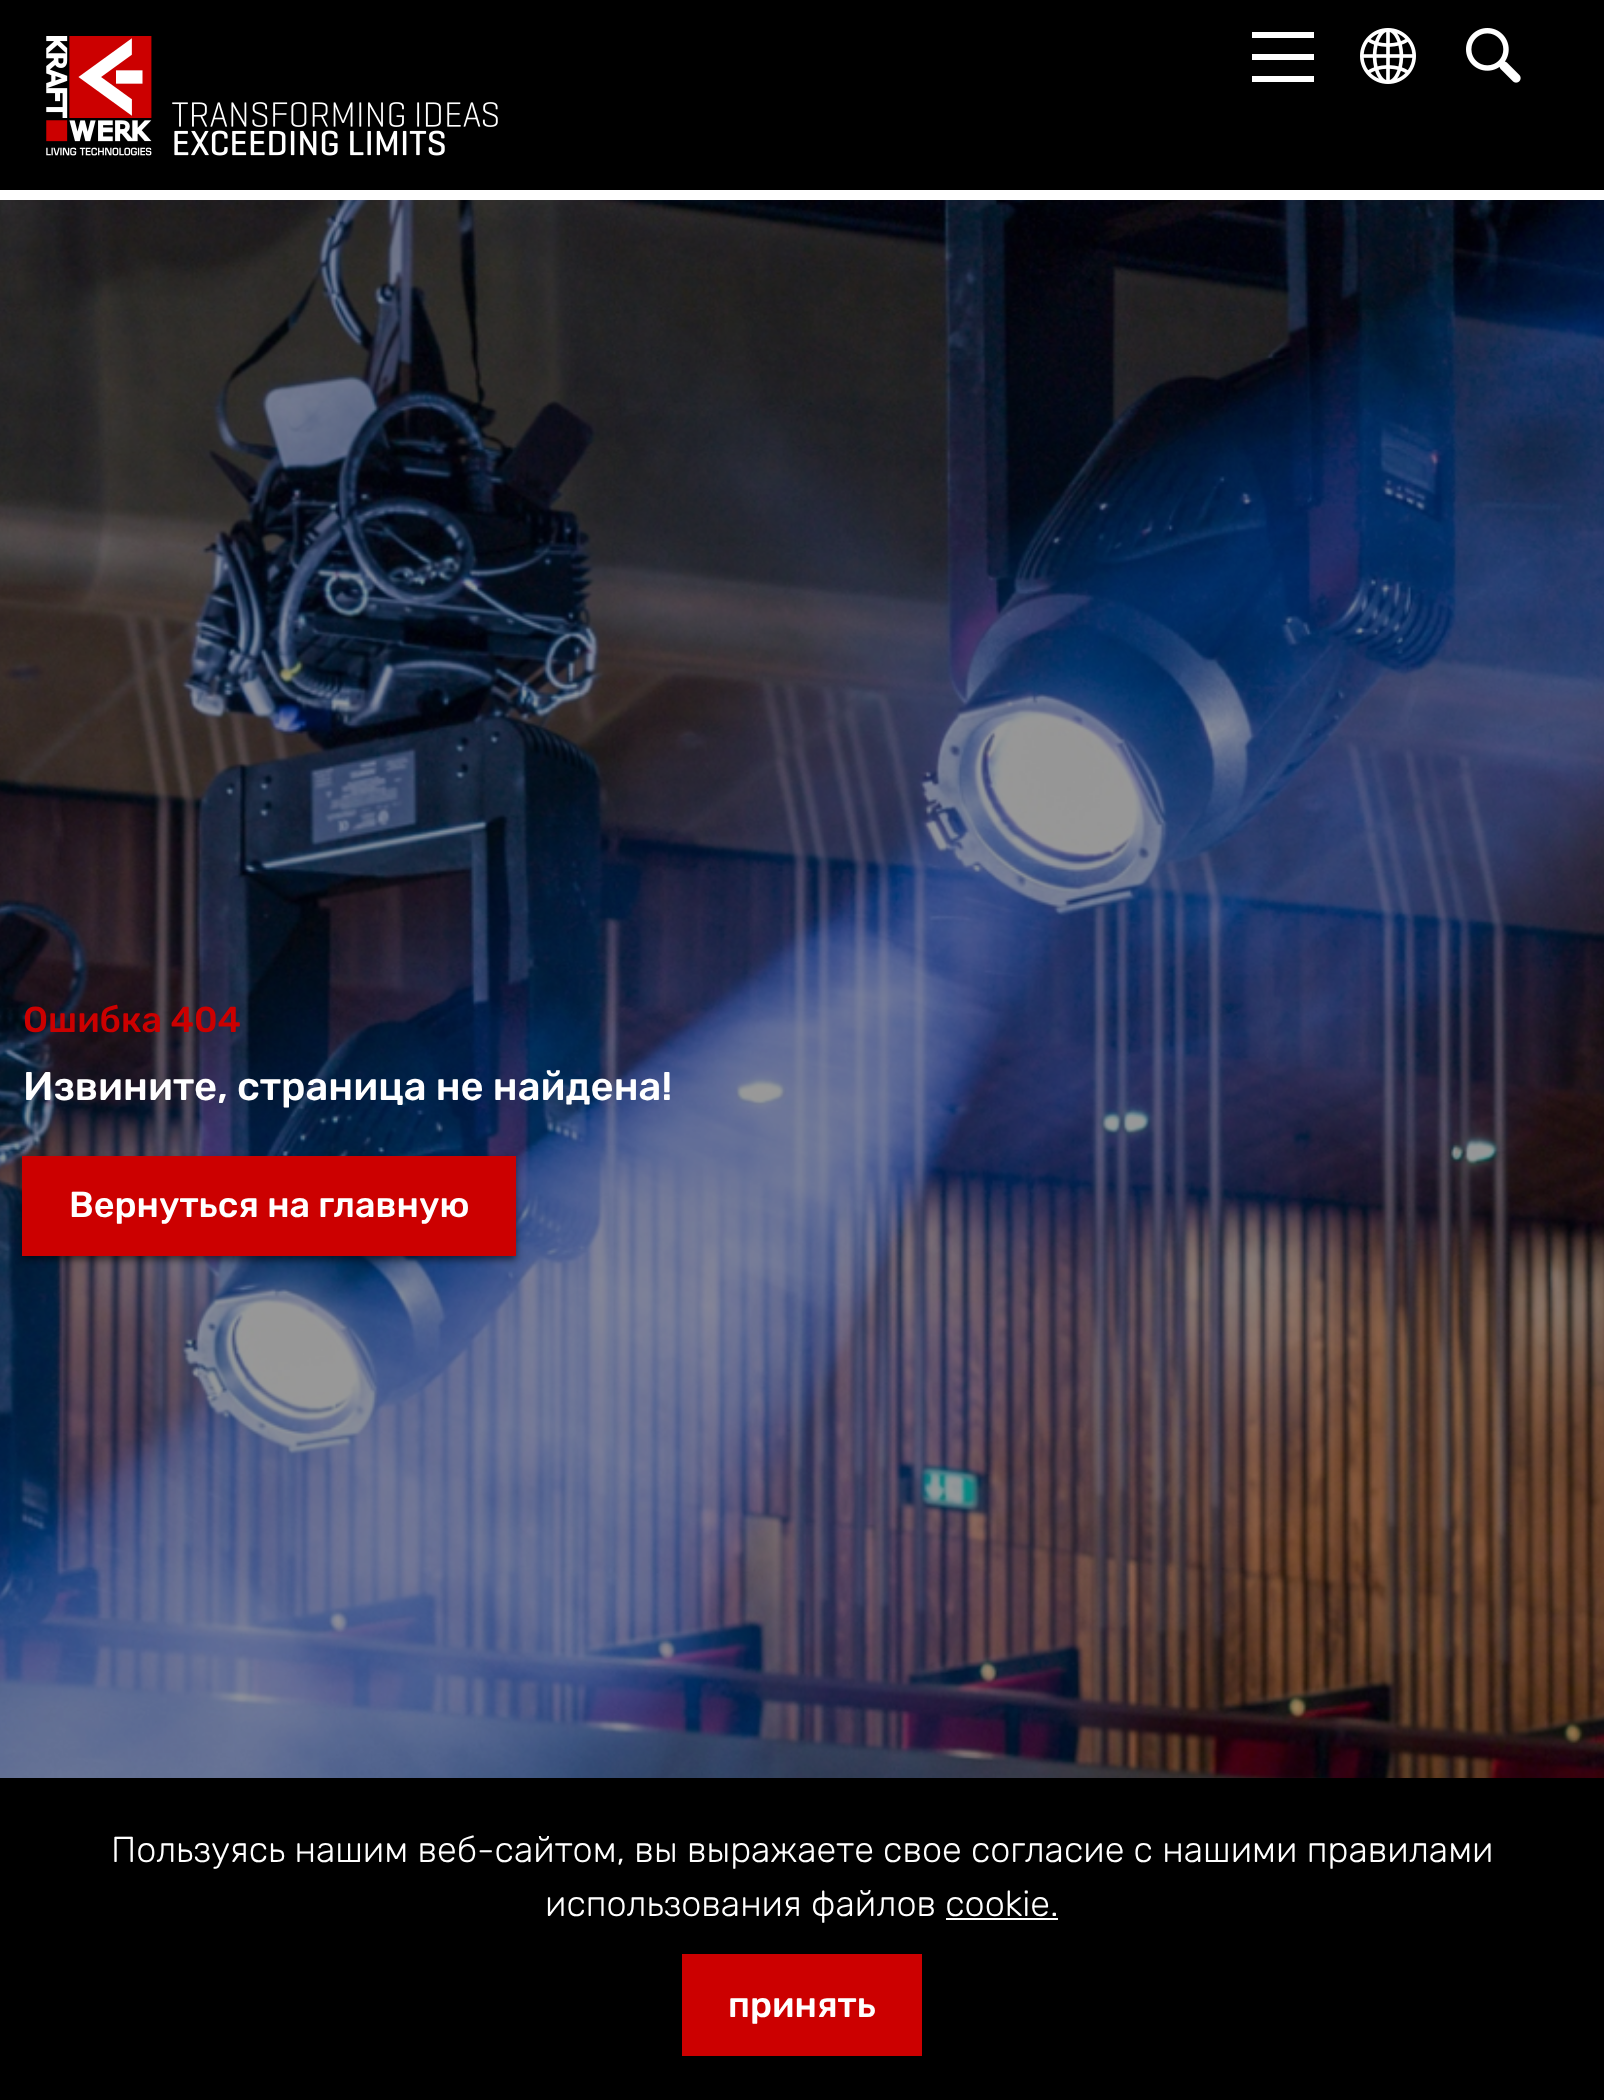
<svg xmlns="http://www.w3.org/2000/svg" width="1604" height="2100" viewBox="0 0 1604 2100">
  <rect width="100%" height="100%" fill="#fff"/>
  <path d="M0 0h1604v190H0z" fill="#000"/>
  <image x="46" y="36" width="452" height="120" href="img/1.png"/>
  <path d="M1252 32h62v6H1252z" fill="#fff"/>
  <path d="M1252 54h62v6H1252z" fill="#fff"/>
  <path d="M1252 76h62v6H1252z" fill="#fff"/>
  <image x="1360" y="28" width="56" height="56" href="img/2.png"/>
  <image x="1466" y="28" width="55" height="55" href="img/3.png"/>
  <image x="0" y="200" width="1604" height="1578" href="img/4.png"/>
  <path d="M22 1160h494v100H22z" fill="#00000080" filter="blur(3.5px)"/>
  <path d="M22 1156h494v100H22z" fill="#c00"/>
  <path d="M0 1778h1604v322H0z" fill="#000"/>
  <path d="M946 1918h112v2H946z" fill="#fff"/>
  <path d="M682 1954h240v102H682z" fill="#c00"/>
  <text x="23" y="1032" font-family="Rubik" font-size="36" font-weight="500" fill="#c00">Ошибка 404</text>
  <text x="23" y="1100" font-family="Rubik" font-size="40" font-weight="500" fill="#fff">Извините, страница не найдена!</text>
  <text x="69" y="1217" font-family="Rubik" font-size="36" font-weight="500" fill="#fff">Вернуться на главную</text>
  <g font-family="Rubik" font-size="36" font-weight="300" fill="#fff">
    <text x="111" y="1862">Пользуясь нашим веб-сайтом, вы выражаете свое согласие c нашими правилами</text>
    <text x="545" y="1916">использования файлов cookie.</text>
  </g>
  <text x="728" y="2017" font-family="Rubik" font-size="36" font-weight="500" fill="#fff">принять</text>
</svg>
